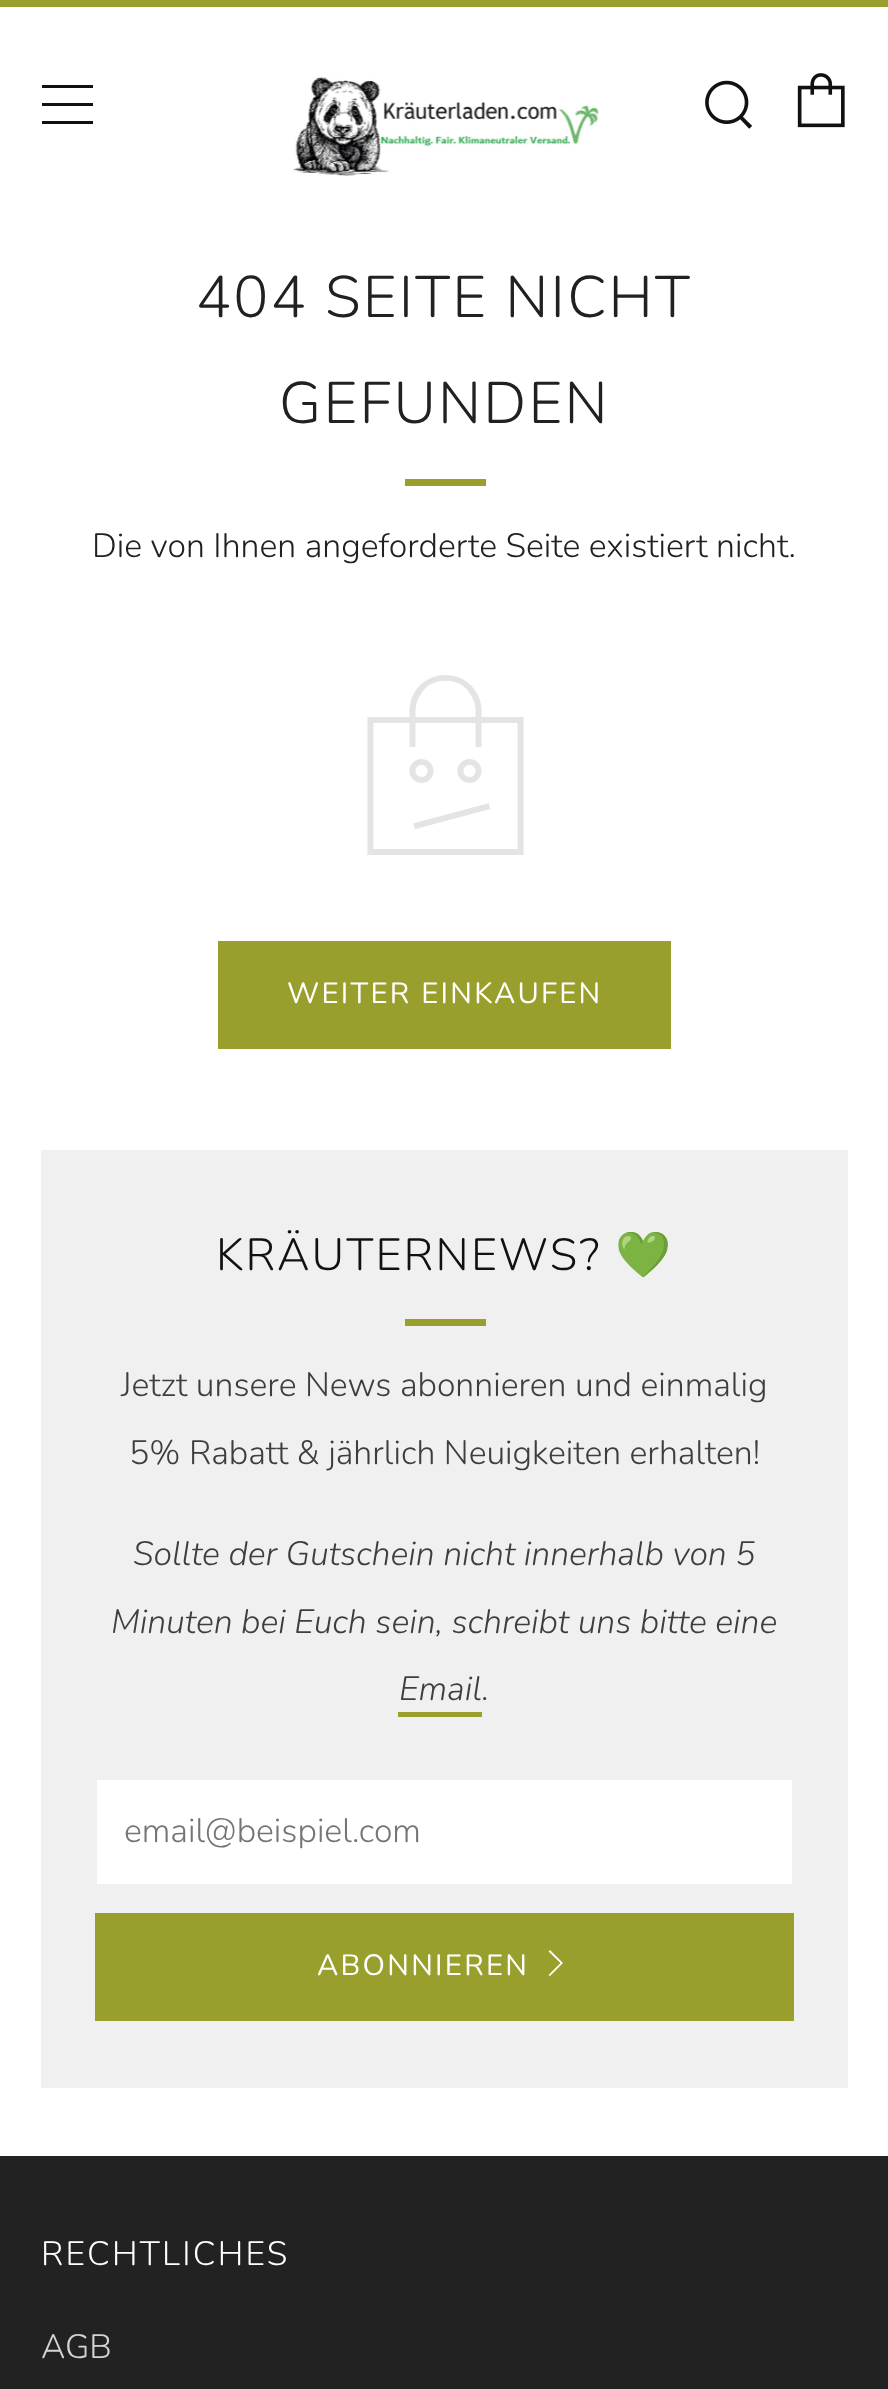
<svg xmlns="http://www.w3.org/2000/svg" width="888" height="2389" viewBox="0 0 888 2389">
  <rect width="100%" height="100%" fill="#fff"/>
  <path d="M0 0h888v7H0z" fill="#989f2c"/>
  <path d="M42 88H93V85H42ZM42 124H93V121H42ZM42 106H93V103H42Z" fill="#111"/>
  <image x="293" y="77" width="306" height="99" href="img/1.png"/>
  <image x="705" y="80" width="48" height="49" href="img/2.png"/>
  <image x="797" y="73" width="48" height="55" href="img/3.png"/>
  <path d="M405 479h81v7H405z" fill="#989f2c"/>
  <image x="367" y="675" width="157" height="180" href="img/4.png"/>
  <path d="M218 941h453v108H218z" fill="#989f2c"/>
  <path d="M41 1150h807v938H41z" fill="#f0f0f0"/>
  <path d="M405 1319h81v7H405z" fill="#989f2c"/>
  <path d="M398 1712h84v5H398z" fill="#989f2c"/>
  <path d="M97 1780h695v104H97z" fill="#fff"/>
  <path d="M95 1913h699v108H95z" fill="#989f2c"/>
  <path d="M548.5 1975L550 1976L563 1963L550 1950L548.5 1951.5L560.5 1963Z" fill="#fff"/>
  <path d="M0 2156h888v233H0z" fill="#222"/>
  <g font-family="Nunito" font-size="58.5" font-weight="300" letter-spacing="2.25" fill="#212121">
    <text x="196" y="317">404 SEITE NICHT</text>
    <text x="279" y="423">GEFUNDEN</text>
  </g>
  <text x="92" y="557" font-family="Nunito" font-size="33.75" font-weight="300" fill="#212121">Die von Ihnen angeforderte Seite existiert nicht.</text>
  <text x="287" y="1003" font-family="Nunito" font-size="29.25" letter-spacing="2.25" fill="#fff">WEITER EINKAUFEN</text>
  <text x="216" y="1270" font-family="Nunito" font-size="45" font-weight="300" letter-spacing="2.25" fill="#111">KRÄUTERNEWS?</text>
  <text x="615" y="1270" font-family="Noto Color Emoji" font-size="45" letter-spacing="2.25" fill="#111">💚</text>
  <g font-family="Nunito" font-size="33.75" font-weight="300" fill="#3e3e3e">
    <text x="121" y="1396">Jetzt unsere News abonnieren und einmalig</text>
    <text x="129" y="1464">5% Rabatt &amp; jährlich Neuigkeiten erhalten!</text>
  </g>
  <g font-family="Nunito" font-size="33.75" font-weight="300" font-style="italic" fill="#3e3e3e">
    <text x="133" y="1565">Sollte der Gutschein nicht innerhalb von 5</text>
    <text x="111" y="1633">Minuten bei Euch sein, schreibt uns bitte eine</text>
    <text x="399" y="1700">Email</text>
    <text x="482" y="1700">.</text>
  </g>
  <text x="124" y="1842" font-family="Nunito" font-size="33.75" font-weight="300" fill="#757575">email@beispiel.com</text>
  <text x="317" y="1975" font-family="Nunito" font-size="29.25" letter-spacing="2.25" fill="#fff">ABONNIEREN</text>
  <text x="41" y="2265" font-family="Nunito" font-size="33.75" font-weight="300" letter-spacing="2.25" fill="#fff">RECHTLICHES</text>
  <text x="41" y="2358" font-family="Nunito" font-size="33.75" font-weight="300" fill="#d3d3d3">AGB</text>
</svg>
